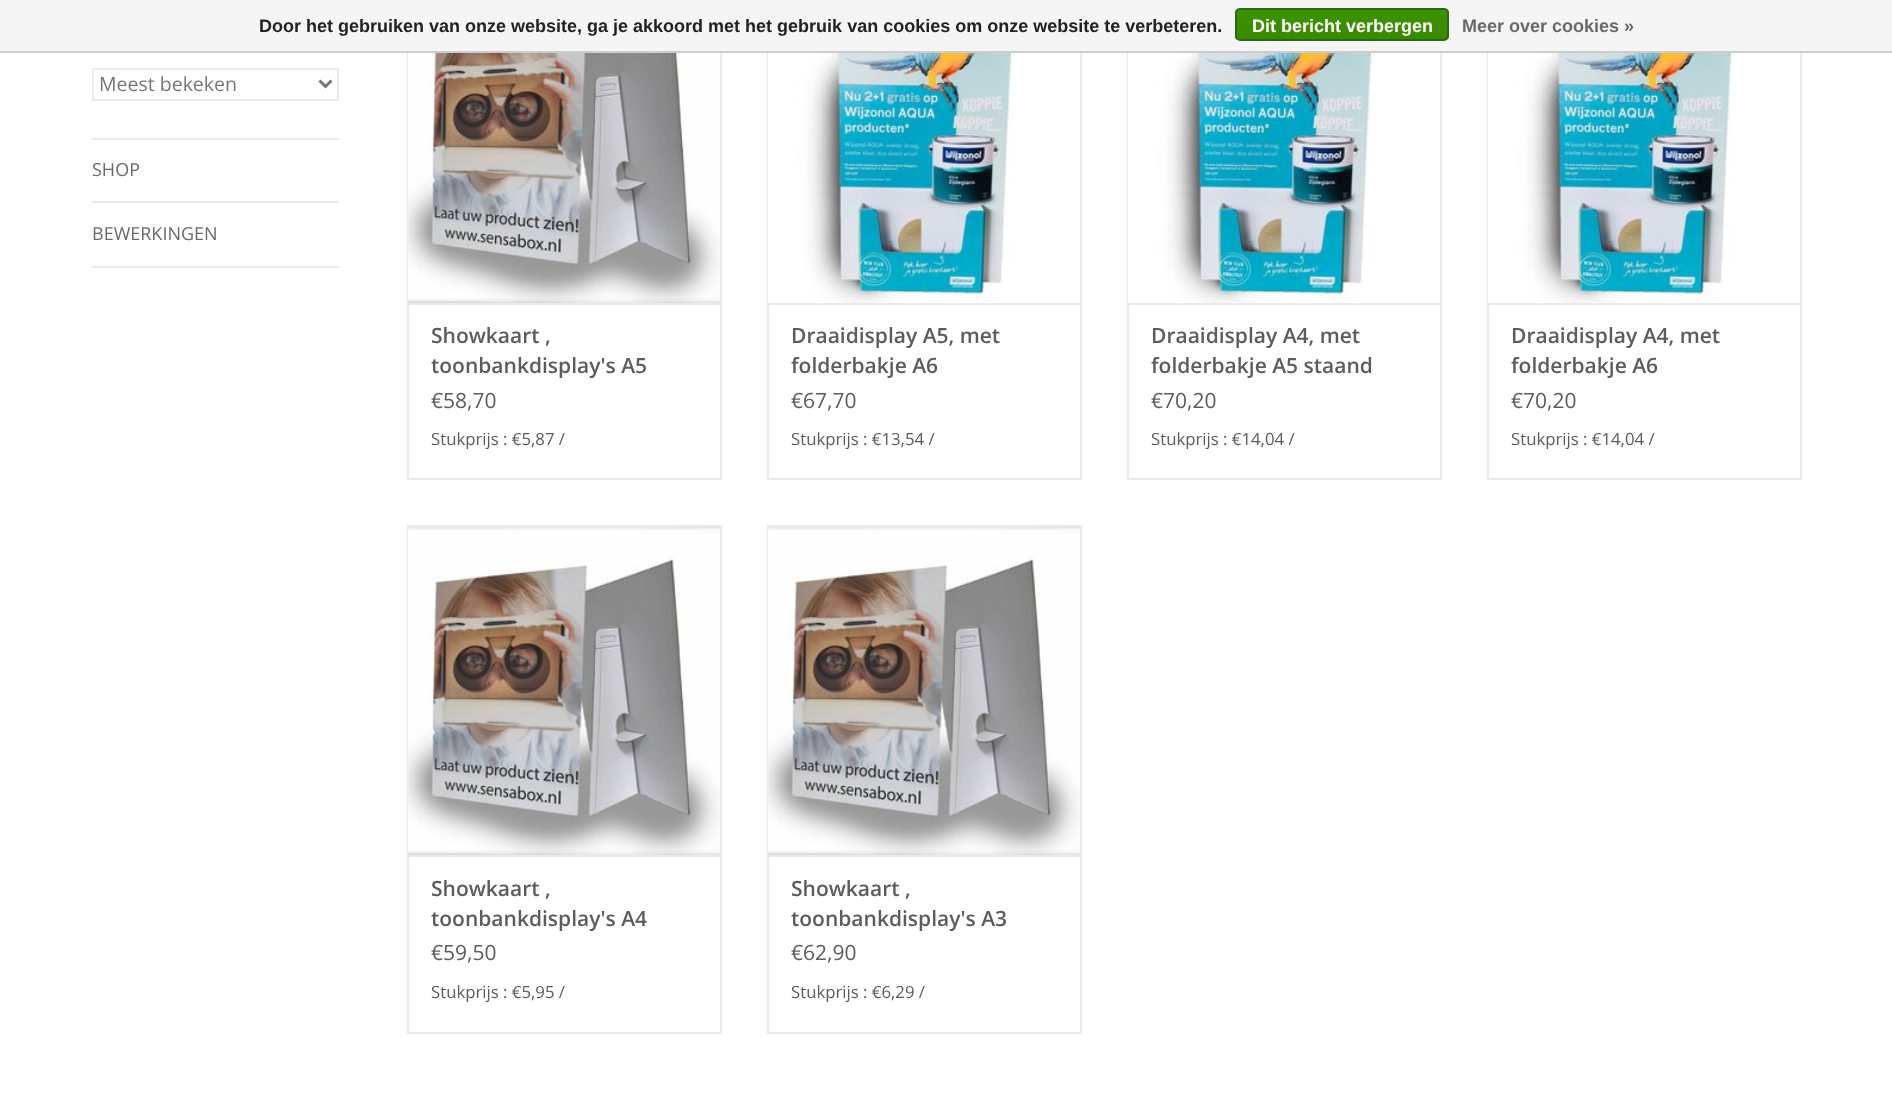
<svg xmlns="http://www.w3.org/2000/svg" width="1892" height="1120" viewBox="0 0 1892 1120">
  <defs>
    <clipPath id="clip1"><rect x="1235" y="8" width="214" height="33" rx="5"/></clipPath>
    <linearGradient id="g1" gradientUnits="userSpaceOnUse" x1="1342" y1="9" x2="1342" y2="39"><stop offset="0" stop-color="#3c9300"/><stop offset="1" stop-color="#398a00"/></linearGradient>
  </defs>
  <rect width="100%" height="100%" fill="#fff"/>
  <path d="M0 0h1892v51H0z" fill="#f5f5f5"/>
  <path d="M0 51h1892v2H0z" fill="#ccc"/>
  <g clip-path="url(#clip1)">
    <path d="M1235 9h214v30H1235z" fill="url(#g1)"/>
  </g>
  <rect x="1236" y="9" width="212" height="31" rx="4" fill="none" stroke="#29691d" stroke-width="2"/>
  <path d="M92 138h247v2H92z" fill="#eaeaea"/>
  <path d="M93 69h245v31H93z" fill="none" stroke="#eaeaea" stroke-width="2"/>
  <path d="M319.5 80.5L325.5 86.5L331.5 80.5" fill="none" stroke="#777" stroke-width="3"/>
  <path d="M92 201h247v2H92z" fill="#eaeaea"/>
  <path d="M92 266h247v2H92z" fill="#eaeaea"/>
  <path d="M720 53h2v250H720z" fill="#eaeaea"/>
  <path d="M407 53h1v250H407z" fill="#eaeaea"/>
  <image x="408" y="53" width="312" height="250" href="img/1.png"/>
  <path d="M408 304h313v175H408z" fill="none" stroke="#eaeaea" stroke-width="2"/>
  <path d="M1080 53h2v250H1080z" fill="#eaeaea"/>
  <path d="M767 53h1v250H767z" fill="#eaeaea"/>
  <image x="768" y="53" width="312" height="250" href="img/2.png"/>
  <path d="M768 304h313v175H768z" fill="none" stroke="#eaeaea" stroke-width="2"/>
  <path d="M1440 53h2v250H1440z" fill="#eaeaea"/>
  <path d="M1127 53h1v250H1127z" fill="#eaeaea"/>
  <image x="1128" y="53" width="312" height="250" href="img/3.png"/>
  <path d="M1128 304h313v175H1128z" fill="none" stroke="#eaeaea" stroke-width="2"/>
  <path d="M1800 53h2v250H1800z" fill="#eaeaea"/>
  <path d="M1487 53h1v250H1487z" fill="#eaeaea"/>
  <image x="1488" y="53" width="312" height="250" href="img/4.png"/>
  <path d="M1488 304h313v175H1488z" fill="none" stroke="#eaeaea" stroke-width="2"/>
  <path d="M407 525h315v2H407z" fill="#eaeaea"/>
  <path d="M720 525h2v330H720z" fill="#eaeaea"/>
  <path d="M407 525h2v330H407z" fill="#eaeaea"/>
  <image x="408" y="527" width="312" height="328" href="img/5.png"/>
  <path d="M408 856h313v177H408z" fill="none" stroke="#eaeaea" stroke-width="2"/>
  <path d="M767 525h315v2H767z" fill="#eaeaea"/>
  <path d="M1080 525h2v330H1080z" fill="#eaeaea"/>
  <path d="M767 525h2v330H767z" fill="#eaeaea"/>
  <image x="768" y="527" width="312" height="328" href="img/6.png"/>
  <path d="M768 856h313v177H768z" fill="none" stroke="#eaeaea" stroke-width="2"/>
  <text x="259" y="32" font-family="Liberation Sans" font-size="18" font-weight="bold" fill="#222">Door het gebruiken van onze website, ga je akkoord met het gebruik van cookies om onze website te verbeteren.</text>
  <text x="1252" y="32" font-family="Liberation Sans" font-size="18" font-weight="bold" fill="#fff">Dit bericht verbergen</text>
  <text x="1462" y="32" font-family="Liberation Sans" font-size="18" font-weight="bold" fill="#696969">Meer over cookies »</text>
  <text x="99" y="91" font-family="Open Sans" font-size="19.5" fill="#777">Meest bekeken</text>
  <g font-family="Open Sans" font-size="18" fill="#696969">
    <text x="92" y="176">SHOP</text>
    <text x="92" y="240">BEWERKINGEN</text>
  </g>
  <g font-family="Open Sans" font-size="21" font-weight="600" fill="#5c5c5c">
    <text x="431" y="343">Showkaart ,</text>
    <text x="431" y="373">toonbankdisplay's A5</text>
  </g>
  <text x="431" y="408" font-family="Open Sans" font-size="21" fill="#5c5c5c">€58,70</text>
  <text x="431" y="445" font-family="Open Sans" font-size="16.75" fill="#5c5c5c">Stukprijs : €5,87 /</text>
  <g font-family="Open Sans" font-size="21" font-weight="600" fill="#5c5c5c">
    <text x="791" y="343">Draaidisplay A5, met</text>
    <text x="791" y="373">folderbakje A6</text>
  </g>
  <text x="791" y="408" font-family="Open Sans" font-size="21" fill="#5c5c5c">€67,70</text>
  <text x="791" y="445" font-family="Open Sans" font-size="16.75" fill="#5c5c5c">Stukprijs : €13,54 /</text>
  <g font-family="Open Sans" font-size="21" font-weight="600" fill="#5c5c5c">
    <text x="1151" y="343">Draaidisplay A4, met</text>
    <text x="1151" y="373">folderbakje A5 staand</text>
  </g>
  <text x="1151" y="408" font-family="Open Sans" font-size="21" fill="#5c5c5c">€70,20</text>
  <text x="1151" y="445" font-family="Open Sans" font-size="16.75" fill="#5c5c5c">Stukprijs : €14,04 /</text>
  <g font-family="Open Sans" font-size="21" font-weight="600" fill="#5c5c5c">
    <text x="1511" y="343">Draaidisplay A4, met</text>
    <text x="1511" y="373">folderbakje A6</text>
  </g>
  <text x="1511" y="408" font-family="Open Sans" font-size="21" fill="#5c5c5c">€70,20</text>
  <text x="1511" y="445" font-family="Open Sans" font-size="16.75" fill="#5c5c5c">Stukprijs : €14,04 /</text>
  <g font-family="Open Sans" font-size="21" font-weight="600" fill="#5c5c5c">
    <text x="431" y="896">Showkaart ,</text>
    <text x="431" y="926">toonbankdisplay's A4</text>
  </g>
  <text x="431" y="960" font-family="Open Sans" font-size="21" fill="#5c5c5c">€59,50</text>
  <text x="431" y="998" font-family="Open Sans" font-size="16.75" fill="#5c5c5c">Stukprijs : €5,95 /</text>
  <g font-family="Open Sans" font-size="21" font-weight="600" fill="#5c5c5c">
    <text x="791" y="896">Showkaart ,</text>
    <text x="791" y="926">toonbankdisplay's A3</text>
  </g>
  <text x="791" y="960" font-family="Open Sans" font-size="21" fill="#5c5c5c">€62,90</text>
  <text x="791" y="998" font-family="Open Sans" font-size="16.75" fill="#5c5c5c">Stukprijs : €6,29 /</text>
</svg>
